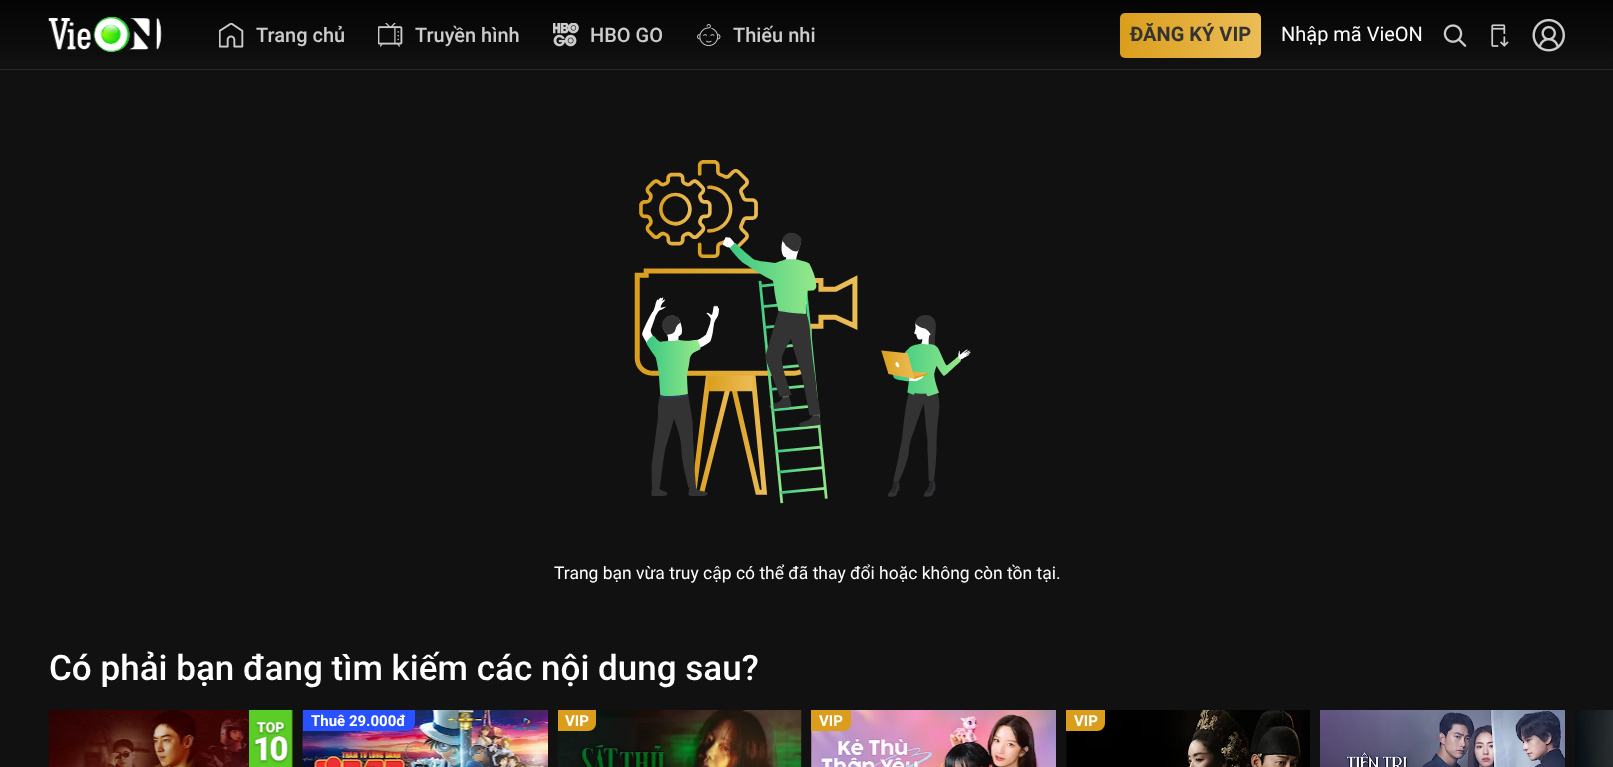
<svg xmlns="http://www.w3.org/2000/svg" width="1613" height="767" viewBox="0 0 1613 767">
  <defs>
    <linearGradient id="g1" gradientUnits="userSpaceOnUse" x1="807" y1="70" x2="807" y2="0"><stop offset="0" stop-color="#111"/><stop offset="1" stop-color="#040404"/></linearGradient>
    <linearGradient id="g2" gradientUnits="userSpaceOnUse" x1="1120" y1="35" x2="1261" y2="35"><stop offset="0" stop-color="#da9e1c"/><stop offset="1" stop-color="#ecbd57"/></linearGradient>
  </defs>
  <rect width="100%" height="100%" fill="#111"/>
  <path d="M0 0h1613v57H0z" fill="url(#g1)"/>
  <path d="M0 69h1613v1H0z" fill="#292929"/>
  <image x="48" y="17" width="114" height="35" href="img/1.png"/>
  <image x="219" y="23" width="25" height="25" href="img/2.png"/>
  <image x="378" y="23" width="25" height="24" href="img/3.png"/>
  <image x="553" y="23" width="26" height="24" href="img/4.png"/>
  <image x="697" y="24" width="24" height="22" href="img/5.png"/>
  <rect x="1120" y="13" width="141" height="45" rx="5" fill="url(#g2)"/>
  <image x="1443" y="24" width="24" height="23" href="img/6.png"/>
  <image x="1491" y="24" width="18" height="23" href="img/7.png"/>
  <image x="1532" y="18" width="33" height="34" href="img/8.png"/>
  <image x="634" y="160" width="337" height="344" href="img/9.png"/>
  <image x="48" y="710" width="245" height="57" href="img/10.png"/>
  <image x="249" y="710" width="44" height="57" href="img/11.png"/>
  <image x="302" y="710" width="246" height="57" href="img/12.png"/>
  <path d="M303 710H415V723C415 727.5 411.5 731 407 731H303Z" fill="#2a51ff"/>
  <image x="557" y="710" width="245" height="57" href="img/13.png"/>
  <path d="M558 710H596V723C596 727.5 592.5 731 588 731H558Z" fill="#da9e1c"/>
  <image x="811" y="710" width="245" height="57" href="img/14.png"/>
  <path d="M811 710H851V723C851 727.5 847.5 731 843 731H811Z" fill="#da9e1c"/>
  <image x="1066" y="710" width="244" height="57" href="img/15.png"/>
  <path d="M1066 710H1105V723C1105 727.5 1101.5 731 1097 731H1066Z" fill="#da9e1c"/>
  <image x="1320" y="710" width="245" height="57" href="img/16.png"/>
  <image x="1575" y="710" width="38" height="57" href="img/17.png"/>
  <g font-family="Roboto" font-size="20" font-weight="500" fill="#ccc">
    <text x="256" y="42">Trang chủ</text>
    <text x="415" y="42">Truyền hình</text>
    <text x="590" y="42">HBO GO</text>
    <text x="733" y="42">Thiếu nhi</text>
  </g>
  <text x="1130" y="41" font-family="Roboto" font-size="20" font-weight="bold" fill="#333">ĐĂNG KÝ VIP</text>
  <text x="1281" y="41" font-family="Roboto" font-size="20" fill="#fff">Nhập mã VieON</text>
  <text x="554" y="579" font-family="Roboto" font-size="17.5" fill="#fff">Trang bạn vừa truy cập có thể đã thay đổi hoặc không còn tồn tại.</text>
  <text x="49" y="680" font-family="Roboto" font-size="35" font-weight="500" fill="#fff">Có phải bạn đang tìm kiếm các nội dung sau?</text>
  <g font-family="Roboto" font-size="15" font-weight="bold" fill="#fff">
    <text x="311" y="726">Thuê 29.000đ</text>
    <text x="565" y="726">VIP</text>
    <text x="819" y="726">VIP</text>
    <text x="1074" y="726">VIP</text>
  </g>
</svg>
